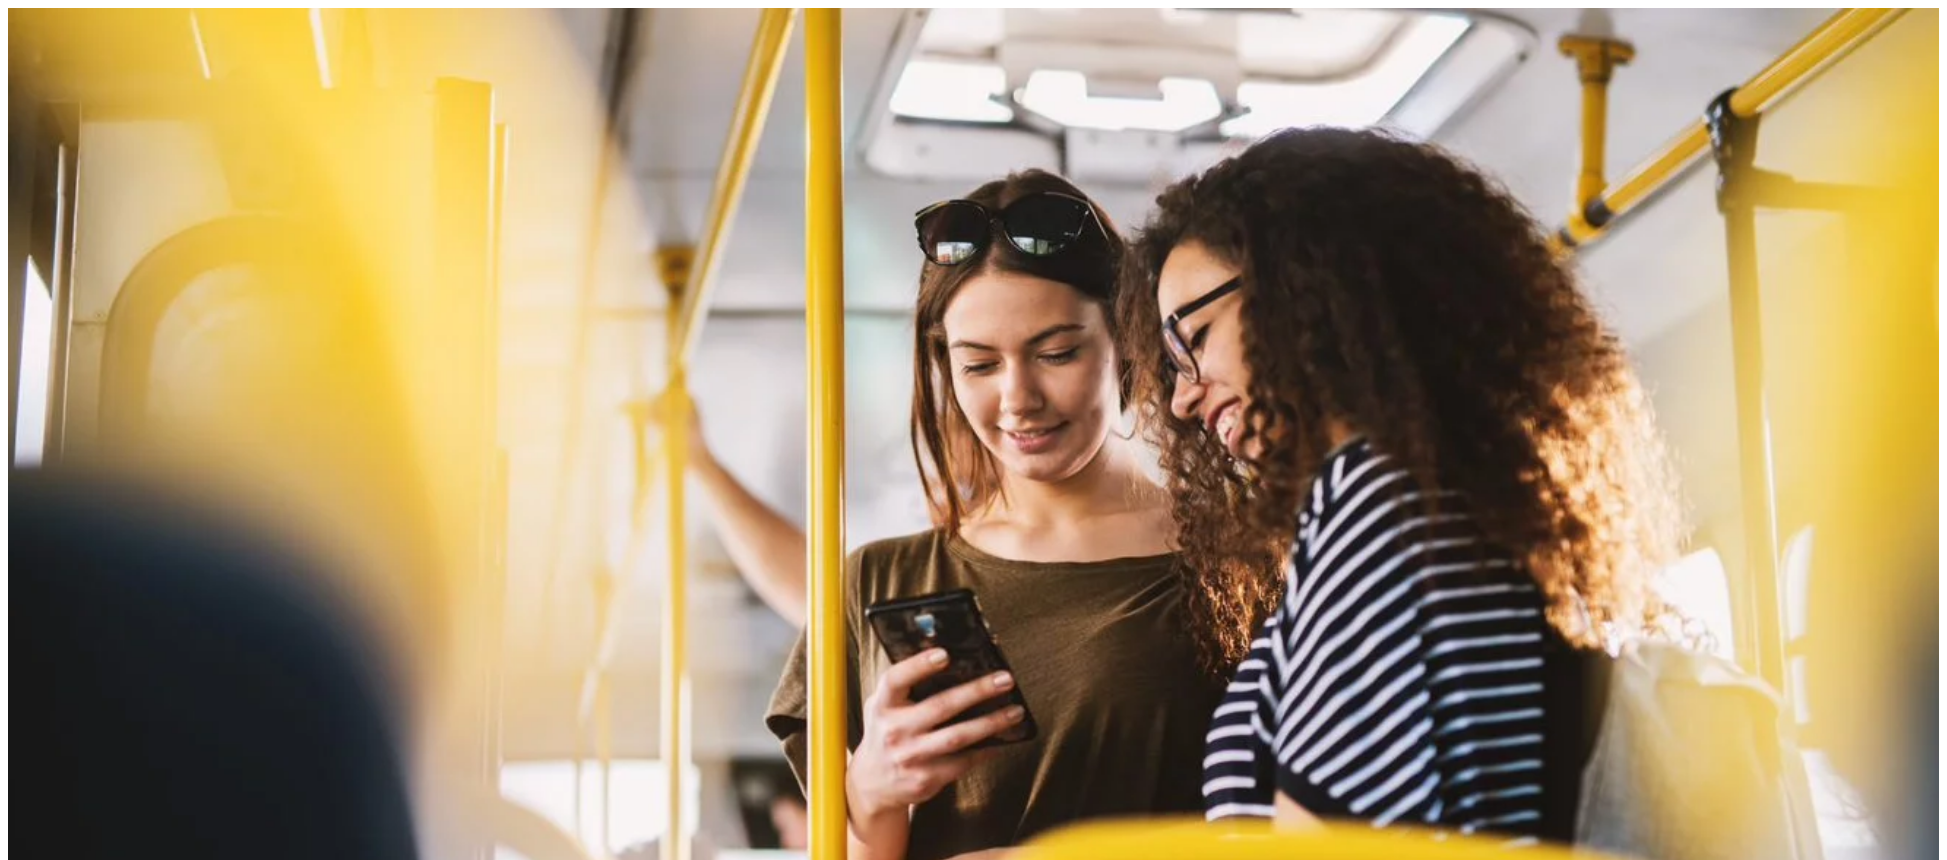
<svg xmlns="http://www.w3.org/2000/svg" width="1947" height="860" viewBox="0 0 1947 860">
  <rect width="100%" height="100%" fill="#fff"/>
  <image x="8" y="8" width="1931" height="852" href="img/1.png"/>
</svg>
